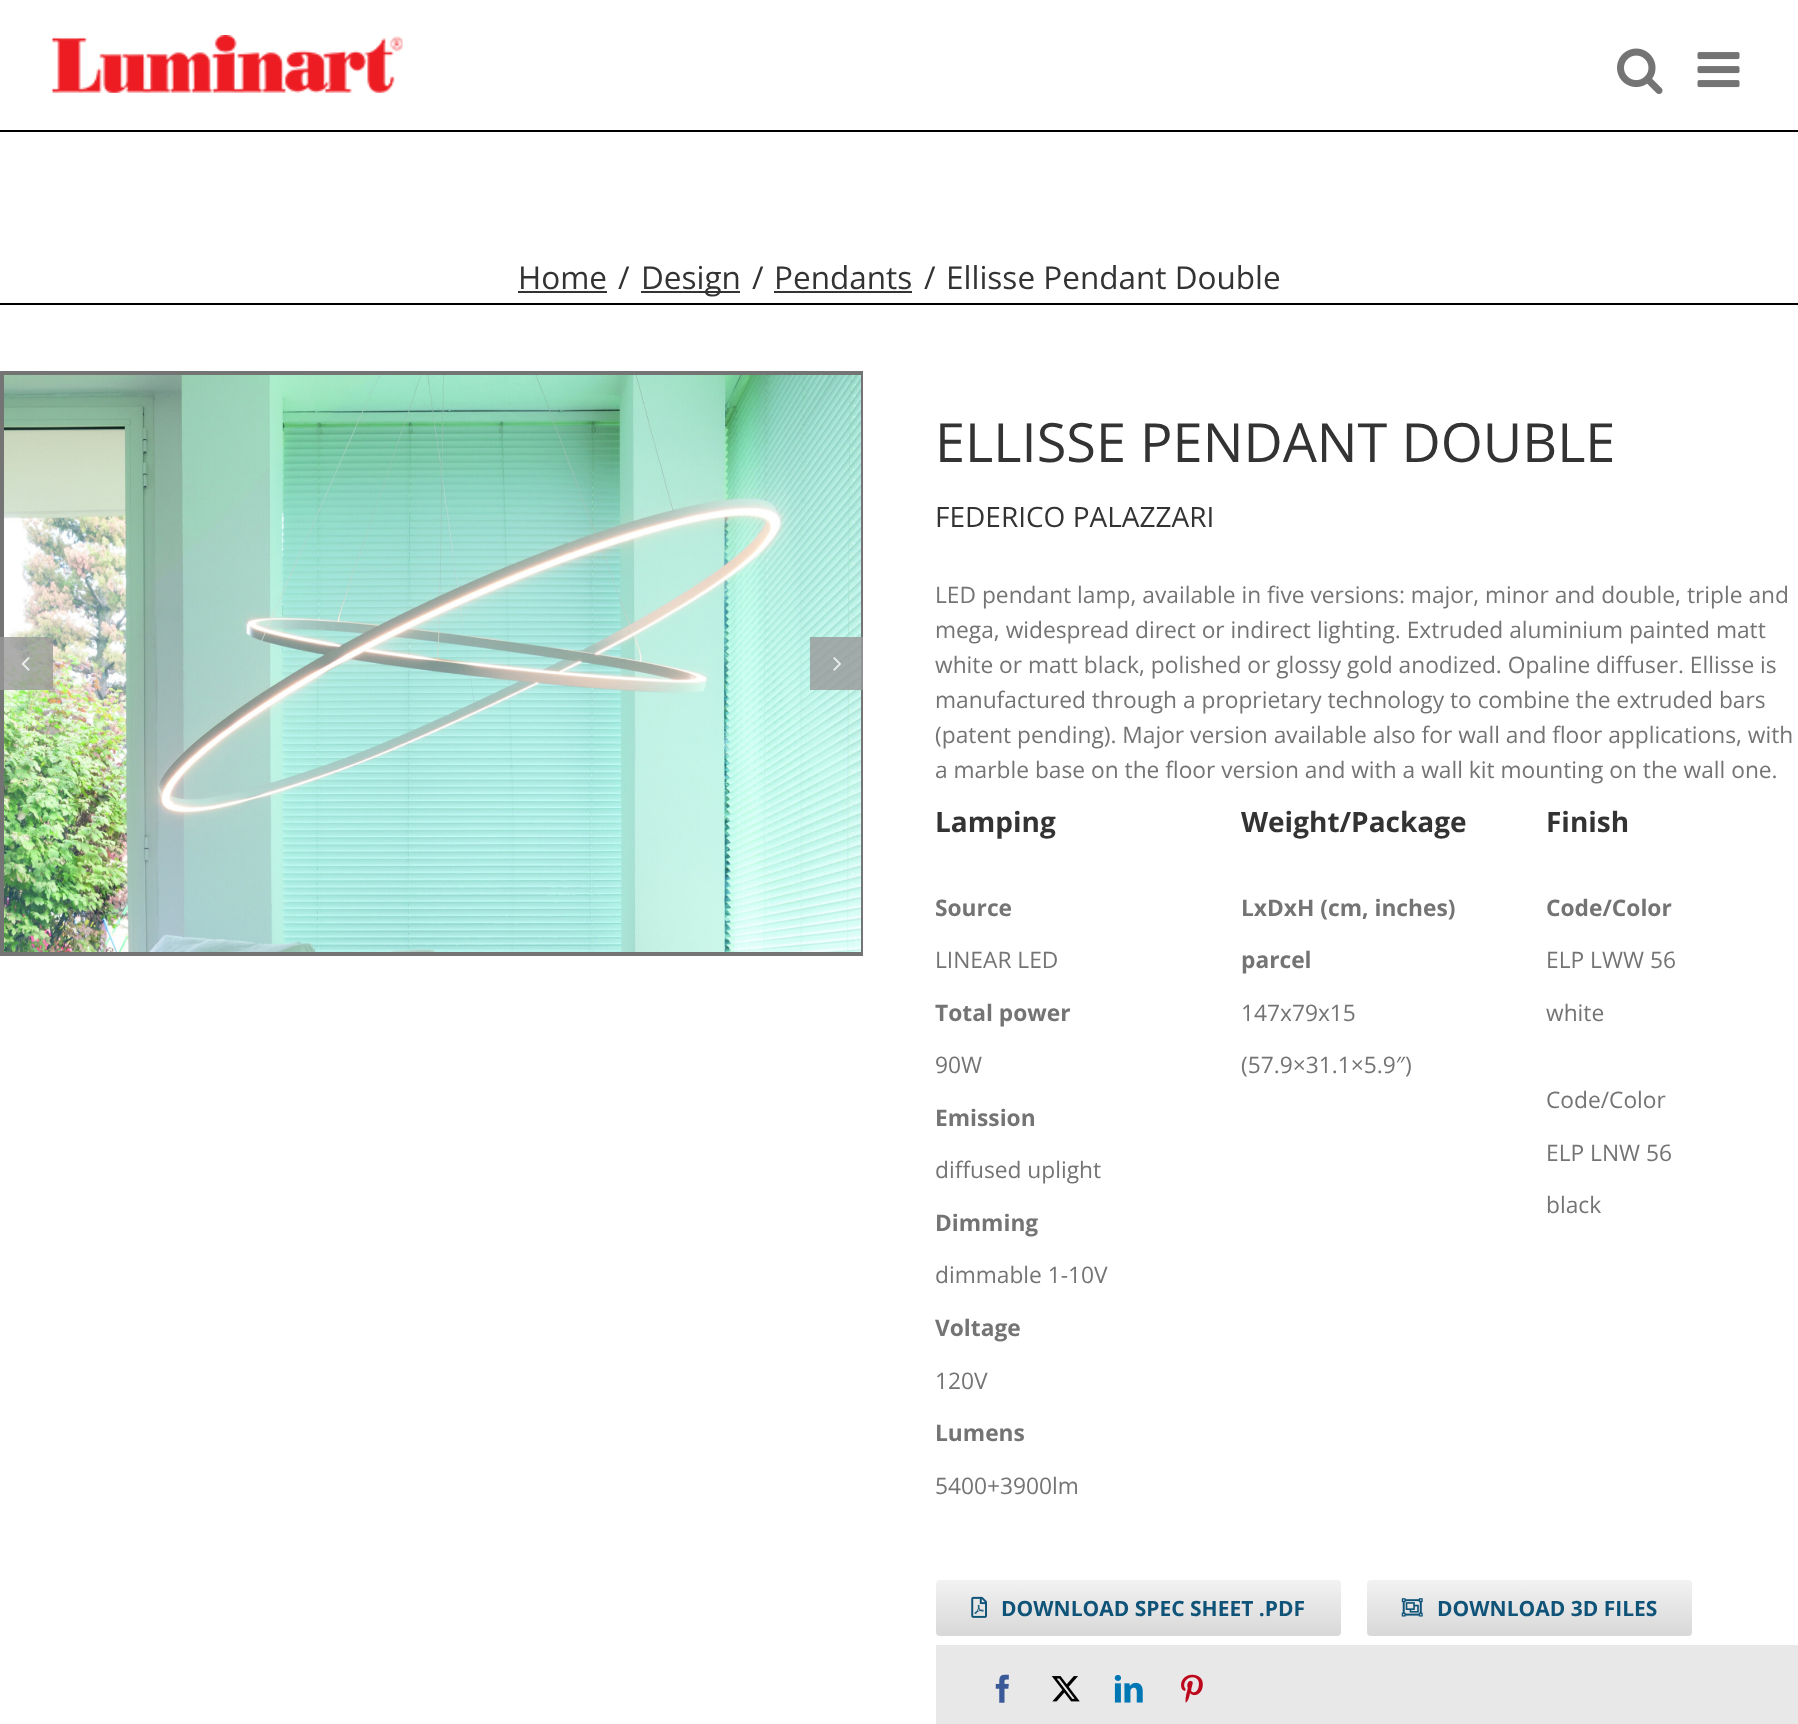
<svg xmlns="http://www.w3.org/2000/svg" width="1798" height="1724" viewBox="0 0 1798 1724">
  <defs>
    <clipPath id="clip1"><path d="M0 357h863v613H0z"/></clipPath>
    <linearGradient id="g1" gradientUnits="userSpaceOnUse" x1="1138" y1="1580" x2="1138" y2="1636"><stop offset="0" stop-color="#f2f2f2"/><stop offset="1" stop-color="#d8d8d8"/></linearGradient>
    <linearGradient id="g2" gradientUnits="userSpaceOnUse" x1="1530" y1="1580" x2="1530" y2="1636"><stop offset="0" stop-color="#f2f2f2"/><stop offset="1" stop-color="#d8d8d8"/></linearGradient>
  </defs>
  <rect width="100%" height="100%" fill="#fff"/>
  <image x="52" y="35" width="351" height="58" href="img/1.png"/>
  <image x="1617" y="48" width="46" height="46" href="img/2.png"/>
  <image x="1697" y="52" width="43" height="36" href="img/3.png"/>
  <path d="M0 130h1798v2H0z" fill="#000"/>
  <path d="M0 303h1798v2H0z" fill="#000"/>
  <path d="M518 291h89v2H518z" fill="#333"/>
  <path d="M641 291h99v2H641z" fill="#333"/>
  <path d="M774 291h138v2H774z" fill="#333"/>
  <g clip-path="url(#clip1)">
    <path d="M2 373h861v581H2z" fill="none" stroke="#747474" stroke-width="4"/>
  </g>
  <image x="4" y="375" width="857" height="577" href="img/4.png"/>
  <path d="M0 637h53v53H0z" fill="#999999cc"/>
  <image x="21" y="657" width="9" height="14" href="img/5.png"/>
  <path d="M810 637h53v53H810z" fill="#999999cc"/>
  <image x="833" y="657" width="8" height="14" href="img/6.png"/>
  <rect x="936" y="1580" width="405" height="56" rx="4" fill="url(#g1)"/>
  <image x="971" y="1596" width="16" height="22" href="img/7.png"/>
  <rect x="1367" y="1580" width="325" height="56" rx="4" fill="url(#g2)"/>
  <image x="1401" y="1598" width="22" height="19" href="img/8.png"/>
  <path d="M936 1645h862v79H936z" fill="#e8e8e8"/>
  <image x="995" y="1674" width="14" height="29" href="img/9.png"/>
  <image x="1051" y="1676" width="29" height="26" href="img/10.png"/>
  <image x="1114" y="1675" width="29" height="28" href="img/11.png"/>
  <image x="1181" y="1674" width="22" height="29" href="img/12.png"/>
  <g font-family="Open Sans" font-size="31.5" fill="#333">
    <text x="518" y="289">Home</text>
    <text x="618" y="289">/</text>
    <text x="641" y="289">Design</text>
    <text x="752" y="289">/</text>
    <text x="774" y="289">Pendants</text>
    <text x="924" y="289">/</text>
    <text x="946" y="289">Ellisse Pendant Double</text>
  </g>
  <text x="935" y="462" font-family="Open Sans" font-size="54.1" fill="#333">ELLISSE PENDANT DOUBLE</text>
  <text x="935" y="527" font-family="Open Sans" font-size="28" fill="#333">FEDERICO PALAZZARI</text>
  <g font-family="Open Sans" font-size="22.75" fill="#747474">
    <text x="935" y="603">LED pendant lamp, available in five versions: major, minor and double, triple and</text>
    <text x="935" y="638">mega, widespread direct or indirect lighting. Extruded aluminium painted matt</text>
    <text x="935" y="673">white or matt black, polished or glossy gold anodized. Opaline diffuser. Ellisse is</text>
    <text x="935" y="708">manufactured through a proprietary technology to combine the extruded bars</text>
    <text x="935" y="743">(patent pending). Major version available also for wall and floor applications, with</text>
    <text x="935" y="778">a marble base on the floor version and with a wall kit mounting on the wall one.</text>
  </g>
  <text x="935" y="832" font-family="Open Sans" font-size="28" font-weight="bold" fill="#333">Lamping</text>
  <text x="935" y="916" font-family="Open Sans" font-size="22.75" font-weight="bold" fill="#747474">Source</text>
  <text x="935" y="968" font-family="Open Sans" font-size="22.75" fill="#747474">LINEAR LED</text>
  <text x="935" y="1021" font-family="Open Sans" font-size="22.75" font-weight="bold" fill="#747474">Total power</text>
  <text x="935" y="1073" font-family="Open Sans" font-size="22.75" fill="#747474">90W</text>
  <text x="935" y="1126" font-family="Open Sans" font-size="22.75" font-weight="bold" fill="#747474">Emission</text>
  <text x="935" y="1178" font-family="Open Sans" font-size="22.75" fill="#747474">diffused uplight</text>
  <text x="935" y="1231" font-family="Open Sans" font-size="22.75" font-weight="bold" fill="#747474">Dimming</text>
  <text x="935" y="1283" font-family="Open Sans" font-size="22.75" fill="#747474">dimmable 1-10V</text>
  <text x="935" y="1336" font-family="Open Sans" font-size="22.75" font-weight="bold" fill="#747474">Voltage</text>
  <text x="935" y="1389" font-family="Open Sans" font-size="22.75" fill="#747474">120V</text>
  <text x="935" y="1441" font-family="Open Sans" font-size="22.75" font-weight="bold" fill="#747474">Lumens</text>
  <text x="935" y="1494" font-family="Open Sans" font-size="22.75" fill="#747474">5400+3900lm</text>
  <text x="1241" y="832" font-family="Open Sans" font-size="28" font-weight="bold" fill="#333">Weight/Package</text>
  <g font-family="Open Sans" font-size="22.75" font-weight="bold" fill="#747474">
    <text x="1241" y="916">LxDxH (cm, inches)</text>
    <text x="1241" y="968">parcel</text>
  </g>
  <g font-family="Open Sans" font-size="22.75" fill="#747474">
    <text x="1241" y="1021">147x79x15</text>
    <text x="1241" y="1073">(57.9×31.1×5.9″)</text>
  </g>
  <text x="1546" y="832" font-family="Open Sans" font-size="28" font-weight="bold" fill="#333">Finish</text>
  <text x="1546" y="916" font-family="Open Sans" font-size="22.75" font-weight="bold" fill="#747474">Code/Color</text>
  <g font-family="Open Sans" font-size="22.75" fill="#747474">
    <text x="1546" y="968">ELP LWW 56</text>
    <text x="1546" y="1021">white</text>
    <text x="1546" y="1108">Code/Color</text>
    <text x="1546" y="1161">ELP LNW 56</text>
    <text x="1546" y="1213">black</text>
  </g>
  <g font-family="Open Sans" font-size="21" font-weight="bold" fill="#105378">
    <text x="1001" y="1616">DOWNLOAD SPEC SHEET .PDF</text>
    <text x="1437" y="1616">DOWNLOAD 3D FILES</text>
  </g>
</svg>
